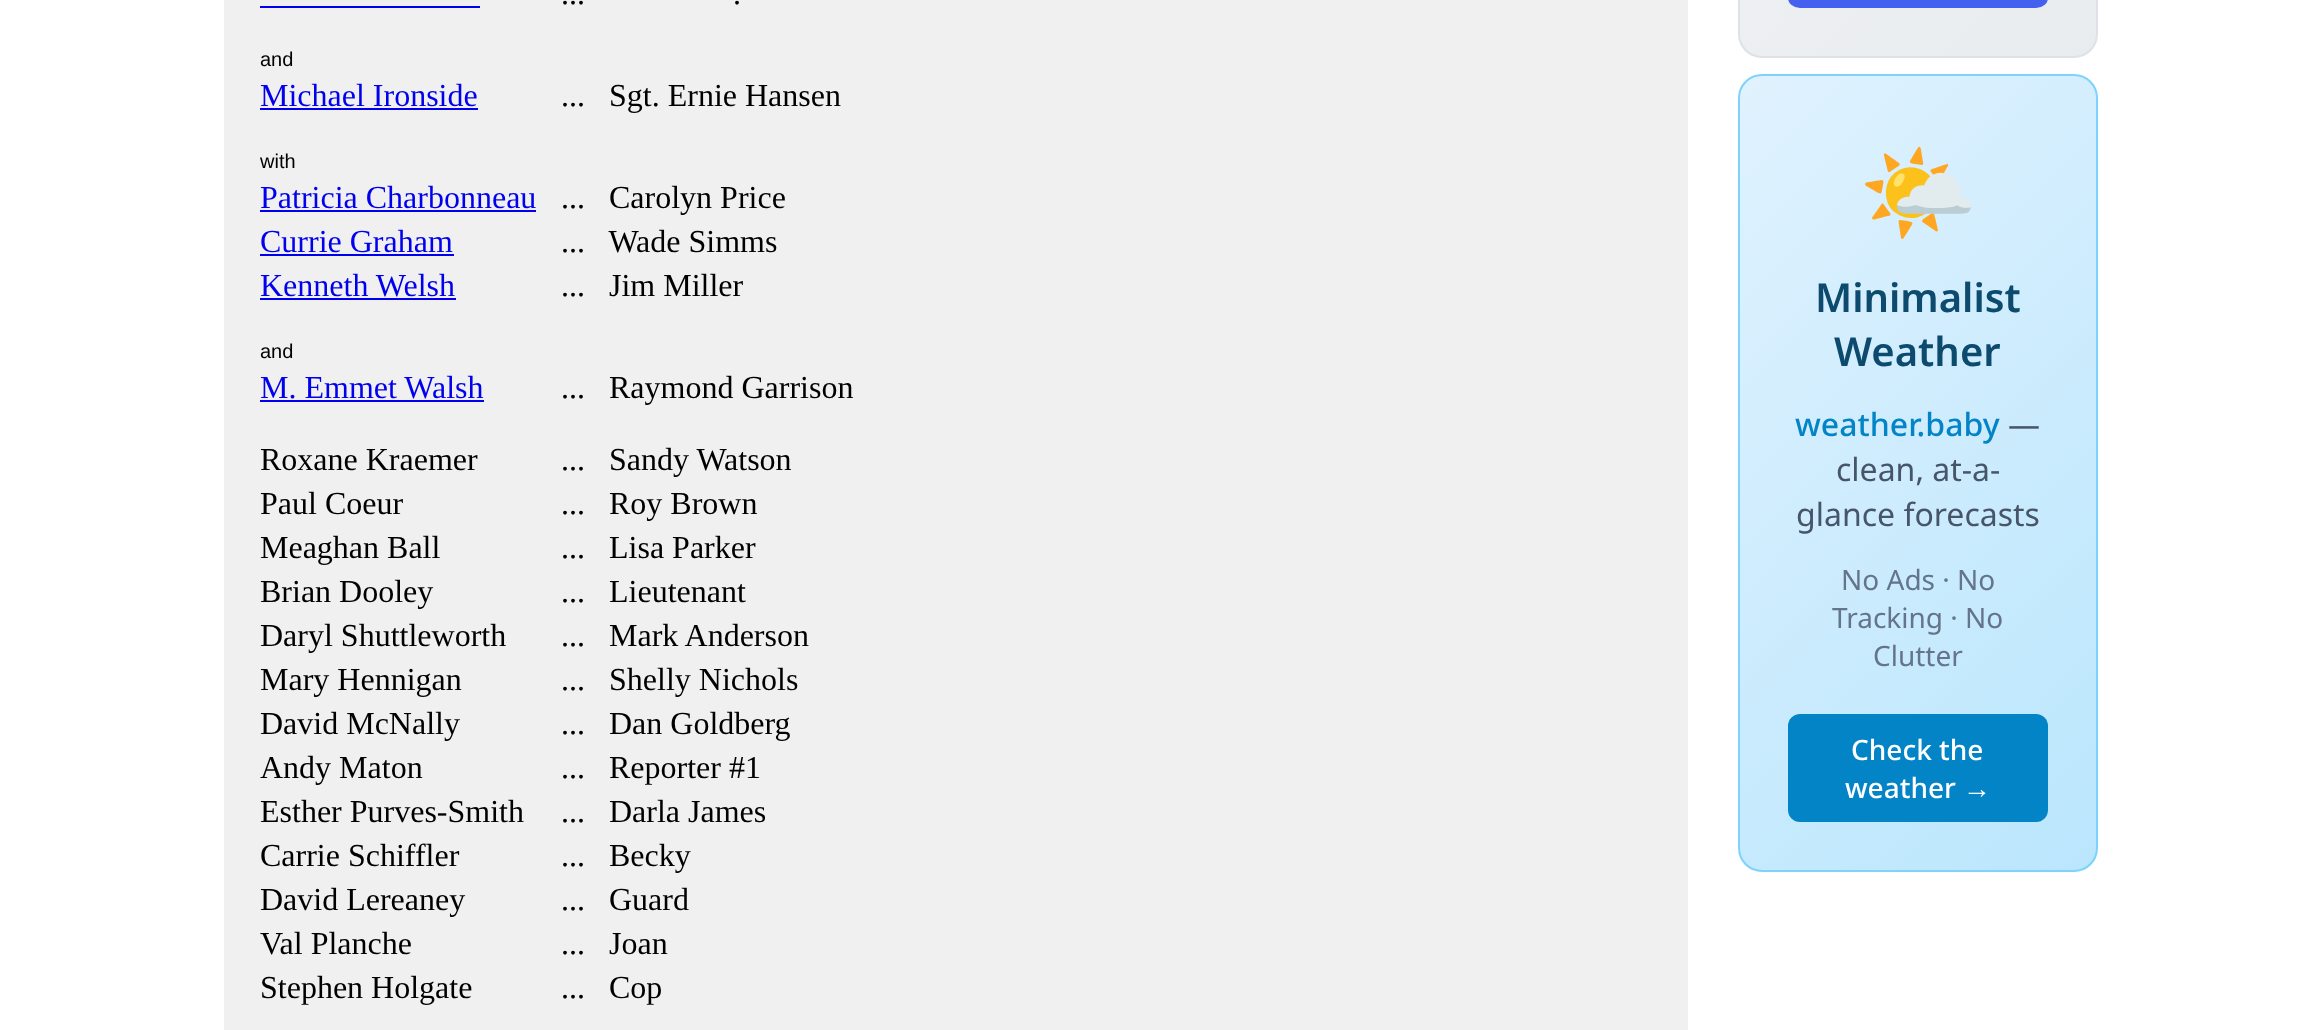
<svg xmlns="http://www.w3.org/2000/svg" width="2322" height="1030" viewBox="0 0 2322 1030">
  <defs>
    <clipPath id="clip1"><rect x="1738" y="-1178" width="360" height="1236" rx="24"/></clipPath>
    <linearGradient id="g1" gradientUnits="userSpaceOnUse" x1="1521" y1="-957" x2="2315" y2="-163"><stop offset="0" stop-color="#f8f9fa"/><stop offset="1" stop-color="#e9ecef"/></linearGradient>
    <clipPath id="clip2"><rect x="1738" y="74" width="360" height="798" rx="24"/></clipPath>
    <linearGradient id="g2" gradientUnits="userSpaceOnUse" x1="1631" y1="186" x2="2206" y2="761"><stop offset="0" stop-color="#e0f2fe"/><stop offset="1" stop-color="#bae6fd"/></linearGradient>
  </defs>
  <rect width="100%" height="100%" fill="#fff"/>
  <path d="M224 0h1464v1030H224z" fill="#f0f0f0"/>
  <path d="M260 6h220v2H260z" fill="#00e"/>
  <path d="M260 108h218v2H260z" fill="#00e"/>
  <path d="M260 210h276v2H260z" fill="#00e"/>
  <path d="M260 254h194v2H260z" fill="#00e"/>
  <path d="M260 298h196v2H260z" fill="#00e"/>
  <path d="M260 400h224v2H260z" fill="#00e"/>
  <g clip-path="url(#clip1)">
    <path d="M1740 0h356v56H1740z" fill="url(#g1)"/>
  </g>
  <rect x="1739" y="-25" width="358" height="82" rx="23" fill="none" stroke="#dee2e6" stroke-width="2"/>
  <rect x="1788" y="-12" width="260" height="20" rx="12" fill="#4361ee"/>
  <g clip-path="url(#clip2)">
    <path d="M1740 76h356v794H1740z" fill="url(#g2)"/>
  </g>
  <rect x="1739" y="75" width="358" height="796" rx="23" fill="none" stroke="#7dd3fc" stroke-width="2"/>
  <rect x="1788" y="714" width="260" height="108" rx="12" fill="#0284c7"/>
  <g font-family="Liberation Serif" font-size="32" fill="#000">
    <text x="561" y="4">...</text>
    <text x="733" y="4">.</text>
  </g>
  <text x="260" y="66" font-family="Liberation Sans" font-size="20" fill="#000">and</text>
  <text x="260" y="106" font-family="Liberation Serif" font-size="32" fill="#00e">Michael Ironside</text>
  <text x="561" y="106" font-family="Liberation Serif" font-size="32" fill="#000" xml:space="preserve">...   Sgt. Ernie Hansen</text>
  <text x="260" y="168" font-family="Liberation Sans" font-size="20" fill="#000">with</text>
  <text x="260" y="208" font-family="Liberation Serif" font-size="32" fill="#00e">Patricia Charbonneau</text>
  <text x="561" y="208" font-family="Liberation Serif" font-size="32" fill="#000" xml:space="preserve">...   Carolyn Price</text>
  <text x="260" y="252" font-family="Liberation Serif" font-size="32" fill="#00e">Currie Graham</text>
  <text x="561" y="252" font-family="Liberation Serif" font-size="32" fill="#000" xml:space="preserve">...   Wade Simms</text>
  <text x="260" y="296" font-family="Liberation Serif" font-size="32" fill="#00e">Kenneth Welsh</text>
  <text x="561" y="296" font-family="Liberation Serif" font-size="32" fill="#000" xml:space="preserve">...   Jim Miller</text>
  <text x="260" y="358" font-family="Liberation Sans" font-size="20" fill="#000">and</text>
  <text x="260" y="398" font-family="Liberation Serif" font-size="32" fill="#00e">M. Emmet Walsh</text>
  <g font-family="Liberation Serif" font-size="32" fill="#000">
    <text x="561" y="398" xml:space="preserve">...   Raymond Garrison</text>
    <text x="260" y="470">Roxane Kraemer</text>
    <text x="561" y="470" xml:space="preserve">...   Sandy Watson</text>
    <text x="260" y="514">Paul Coeur</text>
    <text x="561" y="514" xml:space="preserve">...   Roy Brown</text>
    <text x="260" y="558">Meaghan Ball</text>
    <text x="561" y="558" xml:space="preserve">...   Lisa Parker</text>
    <text x="260" y="602">Brian Dooley</text>
    <text x="561" y="602" xml:space="preserve">...   Lieutenant</text>
    <text x="260" y="646">Daryl Shuttleworth</text>
    <text x="561" y="646" xml:space="preserve">...   Mark Anderson</text>
    <text x="260" y="690">Mary Hennigan</text>
    <text x="561" y="690" xml:space="preserve">...   Shelly Nichols</text>
    <text x="260" y="734">David McNally</text>
    <text x="561" y="734" xml:space="preserve">...   Dan Goldberg</text>
    <text x="260" y="778">Andy Maton</text>
    <text x="561" y="778" xml:space="preserve">...   Reporter #1</text>
    <text x="260" y="822">Esther Purves-Smith</text>
    <text x="561" y="822" xml:space="preserve">...   Darla James</text>
    <text x="260" y="866">Carrie Schiffler</text>
    <text x="561" y="866" xml:space="preserve">...   Becky</text>
    <text x="260" y="910">David Lereaney</text>
    <text x="561" y="910" xml:space="preserve">...   Guard</text>
    <text x="260" y="954">Val Planche</text>
    <text x="561" y="954" xml:space="preserve">...   Joan</text>
    <text x="260" y="998">Stephen Holgate</text>
    <text x="561" y="998" xml:space="preserve">...   Cop</text>
  </g>
  <text x="1858" y="226" font-family="Noto Color Emoji" font-size="96" fill="#00e">🌤️</text>
  <g font-family="Noto Sans" font-size="40" font-weight="600" fill="#0c4a6e">
    <text x="1815" y="312">Minimalist</text>
    <text x="1834" y="366">Weather</text>
  </g>
  <text x="1795" y="436" font-family="Noto Sans" font-size="32" font-weight="500" fill="#0284c7">weather.baby</text>
  <g font-family="Noto Sans" font-size="32" fill="#475569">
    <text x="2008" y="436">—</text>
    <text x="1836" y="481">clean, at-a-</text>
    <text x="1796" y="526">glance forecasts</text>
  </g>
  <g font-family="Noto Sans" font-size="28" fill="#64748b">
    <text x="1841" y="590">No Ads · No</text>
    <text x="1832" y="628">Tracking · No</text>
    <text x="1873" y="666">Clutter</text>
  </g>
  <g font-family="Noto Sans" font-size="28" font-weight="500" fill="#fff">
    <text x="1851" y="760">Check the</text>
    <text x="1845" y="798">weather</text>
  </g>
  <text x="1963" y="798" font-family="Liberation Sans" font-size="28" fill="#fff">→</text>
</svg>
